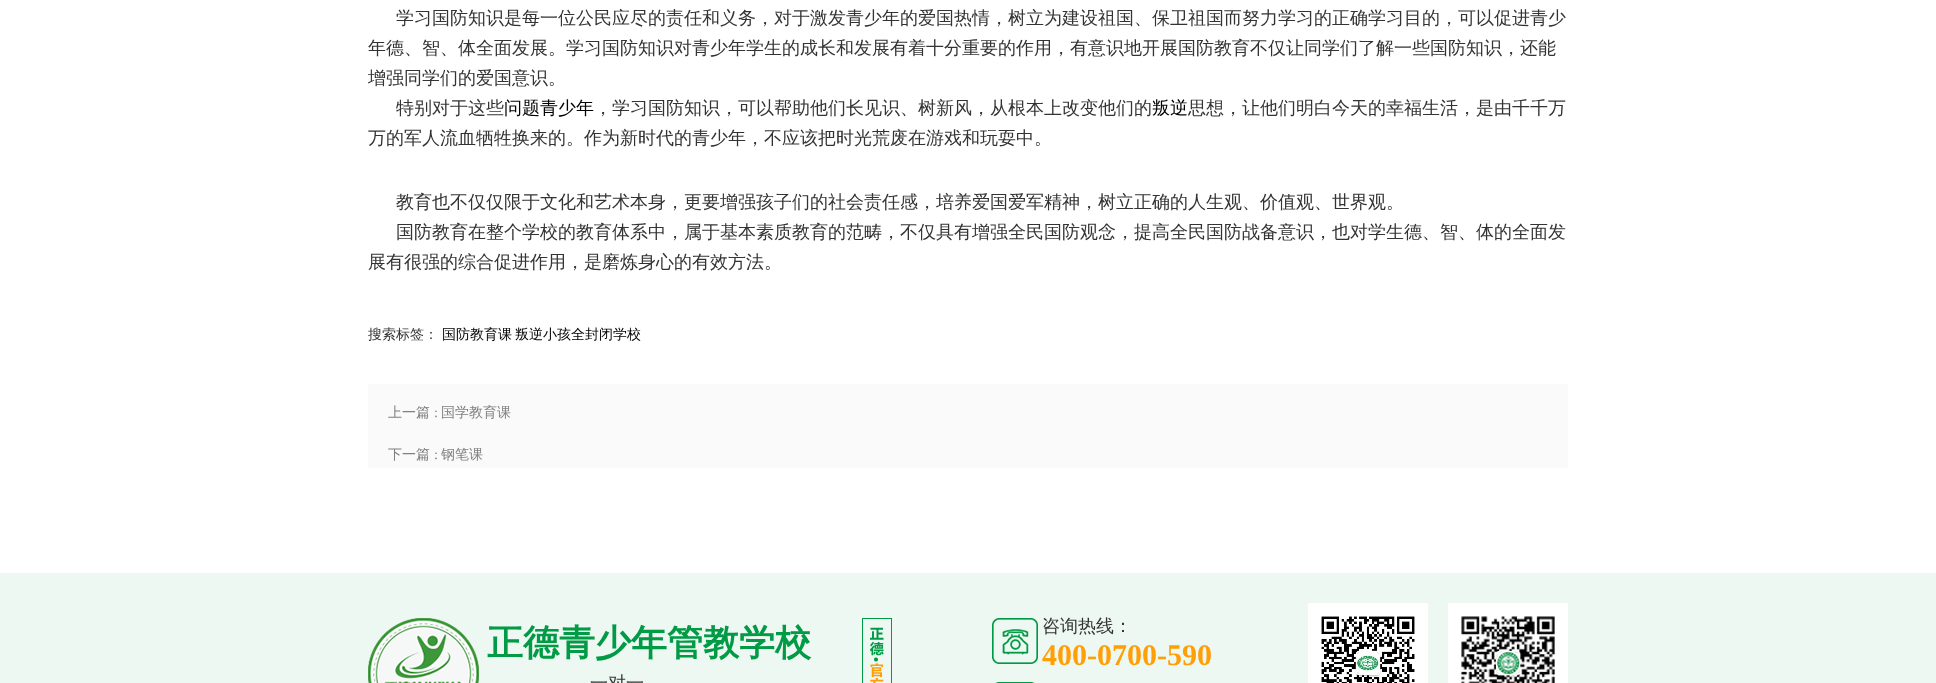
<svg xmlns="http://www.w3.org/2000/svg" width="1936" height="683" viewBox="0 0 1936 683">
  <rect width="100%" height="100%" fill="#fff"/>
  <path d="M368 384h1200v84H368z" fill="#fafafa"/>
  <path d="M0 573h1936v110H0z" fill="#edf8f2"/>
  <image x="368" y="618" width="111" height="65" href="img/1.png"/>
  <image x="862" y="618" width="30" height="65" href="img/2.png"/>
  <image x="992" y="618" width="46" height="46" href="img/3.png"/>
  <image x="995" y="682" width="40" height="1" href="img/4.png"/>
  <path d="M1308 603h120v80H1308z" fill="#fff"/>
  <image x="1321" y="616" width="94" height="67" href="img/5.png"/>
  <path d="M1448 603h120v80H1448z" fill="#fff"/>
  <image x="1461" y="616" width="94" height="67" href="img/6.png"/>
  <g font-family="WenQuanYi Zen Hei" font-size="18" font-weight="500" fill="#333">
    <text x="396" y="24">学习国防知识是每一位公民应尽的责任和义务，对于激发青少年的爱国热情，树立为建设祖国、保卫祖国而努力学习的正确学习目的，可以促进青少</text>
    <text x="368" y="54">年德、智、体全面发展。学习国防知识对青少年学生的成长和发展有着十分重要的作用，有意识地开展国防教育不仅让同学们了解一些国防知识，还能</text>
    <text x="368" y="84">增强同学们的爱国意识。</text>
    <text x="396" y="114">特别对于这些</text>
  </g>
  <text x="504" y="114" font-family="WenQuanYi Zen Hei" font-size="18" font-weight="500" fill="#000">问题青少年</text>
  <text x="594" y="114" font-family="WenQuanYi Zen Hei" font-size="18" font-weight="500" fill="#333">，学习国防知识，可以帮助他们长见识、树新风，从根本上改变他们的</text>
  <text x="1152" y="114" font-family="WenQuanYi Zen Hei" font-size="18" font-weight="500" fill="#000">叛逆</text>
  <g font-family="WenQuanYi Zen Hei" font-size="18" font-weight="500" fill="#333">
    <text x="1188" y="114">思想，让他们明白今天的幸福生活，是由千千万</text>
    <text x="368" y="144">万的军人流血牺牲换来的。作为新时代的青少年，不应该把时光荒废在游戏和玩耍中。</text>
    <text x="396" y="208">教育也不仅仅限于文化和艺术本身，更要增强孩子们的社会责任感，培养爱国爱军精神，树立正确的人生观、价值观、世界观。</text>
    <text x="396" y="238">国防教育在整个学校的教育体系中，属于基本素质教育的范畴，不仅具有增强全民国防观念，提高全民国防战备意识，也对学生德、智、体的全面发</text>
    <text x="368" y="268">展有很强的综合促进作用，是磨炼身心的有效方法。</text>
  </g>
  <text x="368" y="339" font-family="WenQuanYi Zen Hei" font-size="14" font-weight="500" fill="#333">搜索标签：</text>
  <g font-family="WenQuanYi Zen Hei" font-size="14" font-weight="500" fill="#000">
    <text x="442" y="339">国防教育课</text>
    <text x="515" y="339">叛逆小孩全封闭学校</text>
  </g>
  <text x="388" y="417" font-family="WenQuanYi Zen Hei" font-size="14" font-weight="500" fill="#808080">上一篇</text>
  <text x="434" y="417" font-family="Liberation Serif" font-size="14" fill="#808080">:</text>
  <g font-family="WenQuanYi Zen Hei" font-size="14" font-weight="500" fill="#808080">
    <text x="441" y="417">国学教育课</text>
    <text x="388" y="459">下一篇</text>
  </g>
  <text x="434" y="459" font-family="Liberation Serif" font-size="14" fill="#808080">:</text>
  <text x="441" y="459" font-family="WenQuanYi Zen Hei" font-size="14" font-weight="500" fill="#808080">钢笔课</text>
  <text x="487" y="655" font-family="WenQuanYi Zen Hei" font-size="36" font-weight="bold" fill="#019a45">正德青少年管教学校</text>
  <g font-family="WenQuanYi Zen Hei" font-size="18" font-weight="500" fill="#333">
    <text x="590" y="689">一对一</text>
    <text x="1042" y="632">咨询热线：</text>
  </g>
  <text x="1042" y="665" font-family="Liberation Serif" font-size="30" font-weight="bold" fill="#ff9e05">400-0700-590</text>
</svg>
